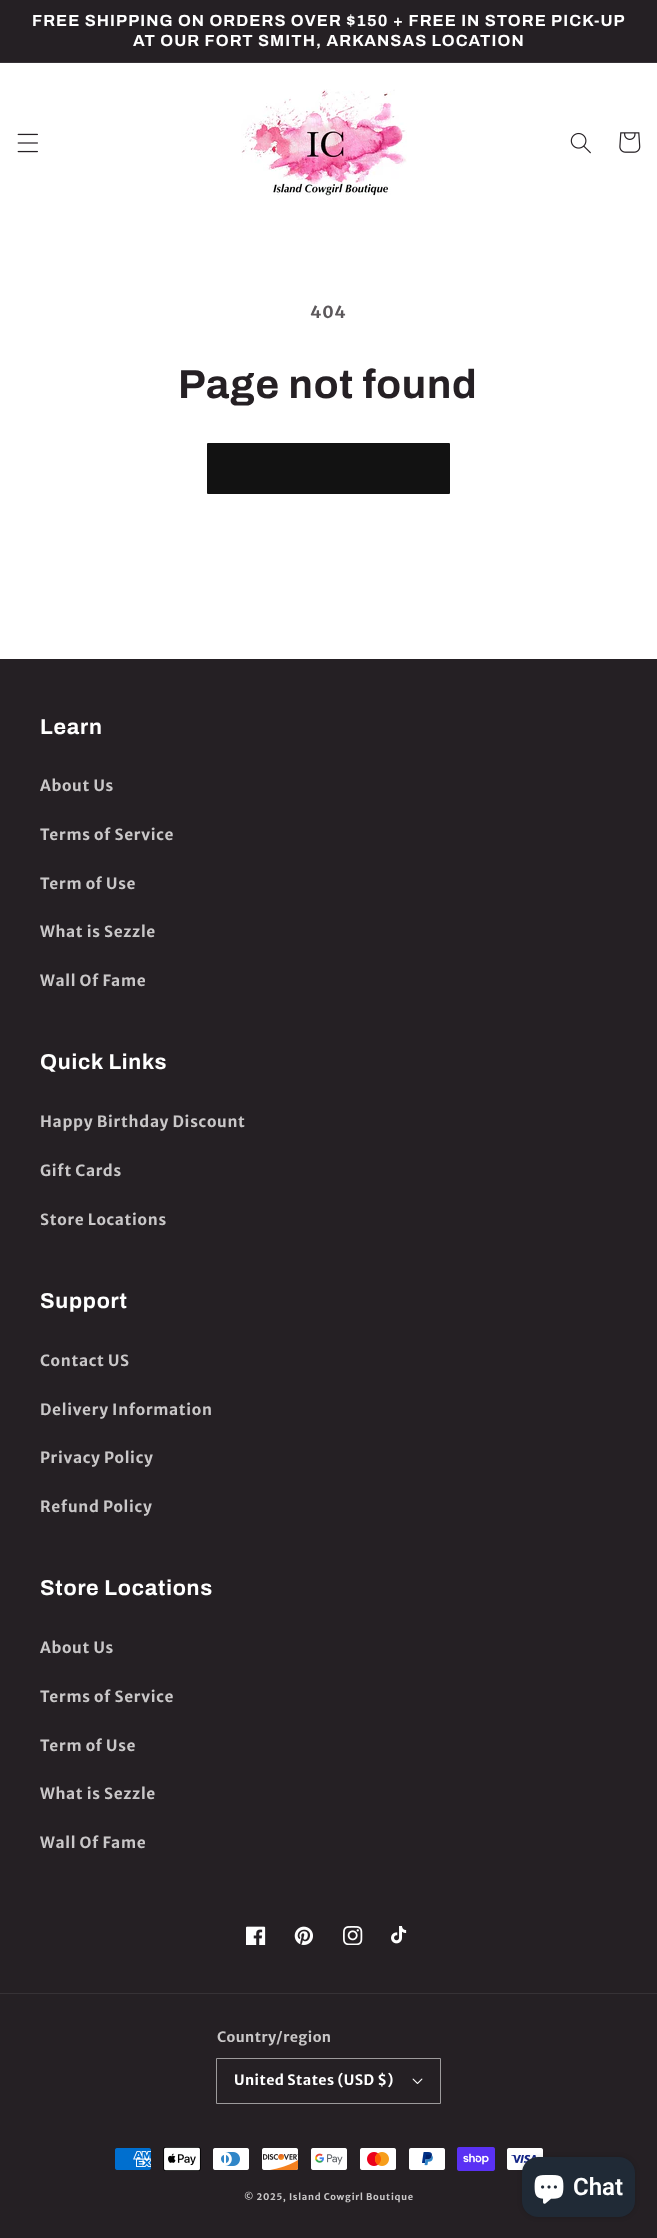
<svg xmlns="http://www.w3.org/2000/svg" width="657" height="2238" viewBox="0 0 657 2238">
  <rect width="100%" height="100%" fill="#fff"/>
  <path d="M0 0h657v62H0z" fill="#252024"/>
  <path d="M0 62h657v1H0z" fill="#363236"/>
  <image x="17" y="133" width="21" height="20" href="img/1.png"/>
  <image x="241" y="89" width="166" height="107" href="img/2.png"/>
  <image x="570" y="132" width="21" height="22" href="img/3.png"/>
  <image x="619" y="132" width="22" height="21" href="img/4.png"/>
  <path d="M207.5 443.5h242v50H207.5z" fill="none" stroke="#121212"/>
  <path d="M208 444h241v49H208z" fill="#121212"/>
  <path d="M0 659h657v1579H0z" fill="#252024"/>
  <image x="246" y="1926" width="20" height="19" href="img/5.png"/>
  <image x="294" y="1926" width="19" height="19" href="img/6.png"/>
  <image x="343" y="1926" width="20" height="19" href="img/7.png"/>
  <image x="391" y="1926" width="16" height="18" href="img/8.png"/>
  <path d="M0 1993h657v1H0z" fill="#363236"/>
  <path d="M216.5 2058.5h224v45H216.5z" fill="none" stroke="#9d9b9c"/>
  <image x="412" y="2078" width="11" height="6" href="img/9.png"/>
  <image x="115" y="2148" width="36" height="22" href="img/10.png"/>
  <image x="163" y="2147" width="38" height="24" href="img/11.png"/>
  <image x="213" y="2148" width="36" height="22" href="img/12.png"/>
  <image x="262" y="2148" width="36" height="22" href="img/13.png"/>
  <image x="311" y="2148" width="36" height="22" href="img/14.png"/>
  <image x="360" y="2148" width="36" height="22" href="img/15.png"/>
  <image x="409" y="2148" width="36" height="22" href="img/16.png"/>
  <image x="457" y="2147" width="38" height="24" href="img/17.png"/>
  <image x="507" y="2148" width="36" height="22" href="img/18.png"/>
  <rect x="522" y="2157" width="113" height="60" rx="16" fill="#00000026" filter="blur(2.5px)"/>
  <rect x="522" y="2157" width="113" height="60" rx="16" fill="#202a36"/>
  <image x="534" y="2175" width="30" height="29" href="img/19.png"/>
  <g font-family="Archivo" font-size="16.2" font-weight="bold" letter-spacing="1.1" fill="#fff">
    <text x="32" y="26">FREE SHIPPING ON ORDERS OVER $150 + FREE IN STORE PICK-UP</text>
    <text x="133" y="46">AT OUR FORT SMITH, ARKANSAS LOCATION</text>
  </g>
  <text x="310" y="318" font-family="Merriweather Sans" font-size="16.5" font-weight="bold" letter-spacing="0.7" fill="#5c585b">404</text>
  <text x="178" y="398" font-family="Archivo" font-size="40.5" font-weight="bold" letter-spacing="0.75" fill="#252024">Page not found</text>
  <text x="40" y="734" font-family="Archivo" font-size="21.5" font-weight="bold" letter-spacing="0.75" fill="#fff">Learn</text>
  <g font-family="Merriweather Sans" font-size="15.4" font-weight="bold" letter-spacing="0.7" fill="#c9c7c8">
    <text x="40" y="791">About Us</text>
    <text x="40" y="840">Terms of Service</text>
    <text x="40" y="889">Term of Use</text>
    <text x="40" y="937">What is Sezzle</text>
    <text x="40" y="986">Wall Of Fame</text>
  </g>
  <text x="40" y="1069" font-family="Archivo" font-size="21.5" font-weight="bold" letter-spacing="0.75" fill="#fff">Quick Links</text>
  <g font-family="Merriweather Sans" font-size="15.4" font-weight="bold" letter-spacing="0.7" fill="#c9c7c8">
    <text x="40" y="1127">Happy Birthday Discount</text>
    <text x="40" y="1176">Gift Cards</text>
    <text x="40" y="1225">Store Locations</text>
  </g>
  <text x="40" y="1308" font-family="Archivo" font-size="21.5" font-weight="bold" letter-spacing="0.75" fill="#fff">Support</text>
  <g font-family="Merriweather Sans" font-size="15.4" font-weight="bold" letter-spacing="0.7" fill="#c9c7c8">
    <text x="40" y="1366">Contact US</text>
    <text x="40" y="1415">Delivery Information</text>
    <text x="40" y="1463">Privacy Policy</text>
    <text x="40" y="1512">Refund Policy</text>
  </g>
  <text x="40" y="1595" font-family="Archivo" font-size="21.5" font-weight="bold" letter-spacing="0.75" fill="#fff">Store Locations</text>
  <g font-family="Merriweather Sans" font-size="15.4" font-weight="bold" letter-spacing="0.7" fill="#c9c7c8">
    <text x="40" y="1653">About Us</text>
    <text x="40" y="1702">Terms of Service</text>
    <text x="40" y="1751">Term of Use</text>
    <text x="40" y="1799">What is Sezzle</text>
    <text x="40" y="1848">Wall Of Fame</text>
  </g>
  <text x="217" y="2042" font-family="Merriweather Sans" font-size="14.25" font-weight="bold" letter-spacing="0.4" fill="#c9c7c8">Country/region</text>
  <text x="234" y="2085" font-family="Merriweather Sans" font-size="14.25" font-weight="bold" letter-spacing="0.4" fill="#fff">United States (USD $)</text>
  <text x="244" y="2200" font-family="Merriweather Sans" font-size="9.2" font-weight="bold" letter-spacing="0.75" fill="#c9c7c8">© 2025, Island Cowgirl Boutique</text>
  <text x="573" y="2195" font-family="Roboto" font-size="24" font-weight="600" fill="#fff">Chat</text>
</svg>
